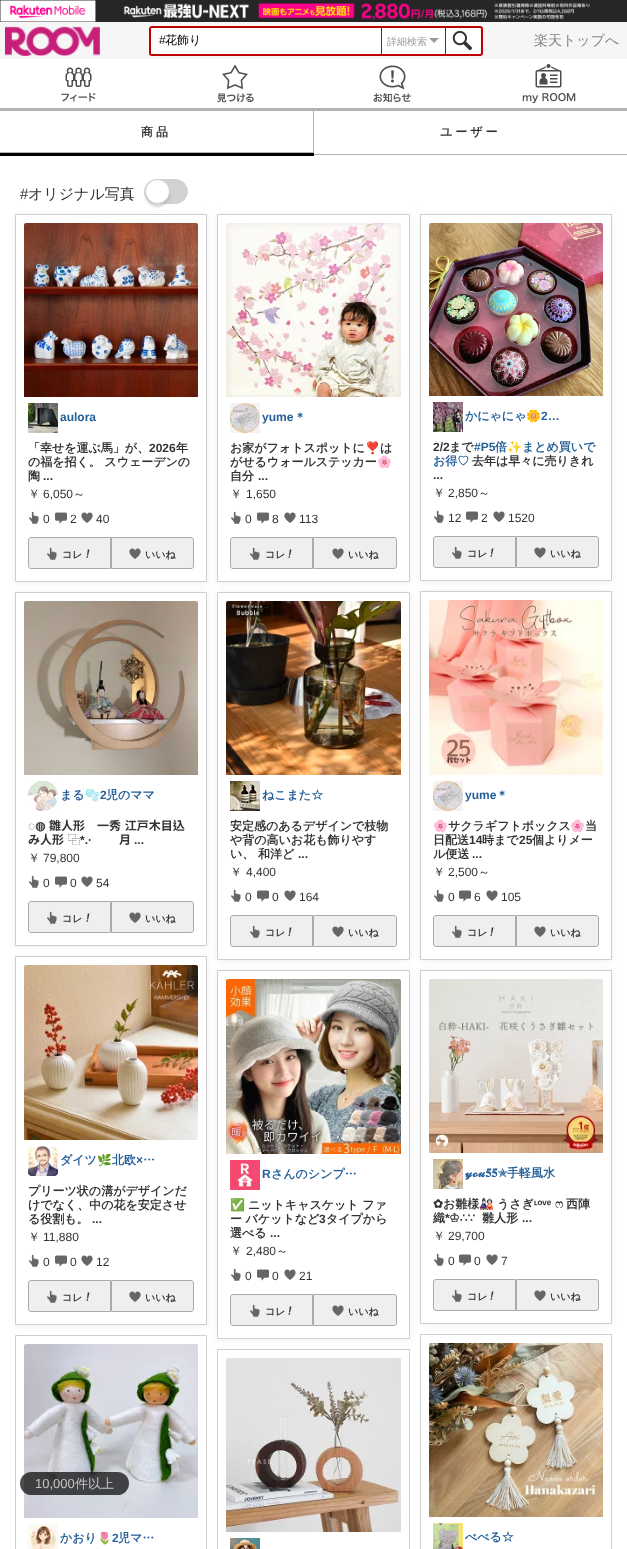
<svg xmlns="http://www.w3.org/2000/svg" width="627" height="1549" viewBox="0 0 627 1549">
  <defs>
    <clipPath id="clip1"><path d="M60 789h100v13H60z"/></clipPath>
    <clipPath id="clip2"><path d="M60 1154h100v13H60z"/></clipPath>
    <clipPath id="clip3"><path d="M60 1532h100v13H60z"/></clipPath>
    <clipPath id="clip4"><path d="M465 410h100v13H465z"/></clipPath>
  </defs>
  <rect width="100%" height="100%" fill="#fff"/>
  <image x="0" y="0" width="627" height="22" href="img/1.png"/>
  <path d="M0 22h627v37H0z" fill="#f6f6f6"/>
  <rect x="150" y="27" width="332" height="28" rx="2" fill="#fff" stroke="#bf0000" stroke-width="2"/>
  <path d="M151 28h1v26H151z" fill="#fff"/>
  <path d="M381 28h1v26H381z" fill="#bf0000"/>
  <path d="M429 38H439L434 43Z" fill="#999"/>
  <path d="M445 28h1v26H445z" fill="#bf0000"/>
  <image x="452" y="30" width="20" height="21" href="img/2.png"/>
  <image x="5" y="26" width="95" height="30" href="img/3.png"/>
  <image x="217" y="64" width="37" height="39" href="img/4.png"/>
  <path d="M314 108h313v3H314z" fill="#b2b2b2"/>
  <image x="522" y="64" width="54" height="40" href="img/5.png"/>
  <path d="M0 108h314v3H0z" fill="#b2b2b2"/>
  <image x="61" y="67" width="35" height="35" href="img/6.png"/>
  <image x="373" y="65" width="38" height="38" href="img/7.png"/>
  <path d="M0 153h314v3H0z" fill="#000"/>
  <path d="M313 111h1v42H313z" fill="#b2b2b2"/>
  <path d="M0 152h314v1H0z" fill="#b2b2b2"/>
  <path d="M314 154h313v1H314z" fill="#b2b2b2"/>
  <rect x="144.5" y="179.5" width="43" height="24" rx="12" fill="#d1d1d1" stroke="#d1d1d1"/>
  <rect x="145" y="182" width="25" height="25" rx="12.5" fill="#99999966" filter="blur(1px)"/>
  <circle cx="157.5" cy="191.5" r="12" fill="#fff" stroke="#d1d1d1"/>
  <rect x="15" y="215" width="192" height="368" rx="3" fill="#efefef" filter="blur(3px)"/>
  <path d="M15.5 214.5h191v367H15.5z" fill="#fff" stroke="#cfcfcf"/>
  <image x="24" y="223" width="174" height="174" href="img/8.png"/>
  <image x="28" y="403" width="30" height="30" href="img/9.png"/>
  <image x="29" y="511" width="10" height="13" href="img/10.png"/>
  <image x="55" y="512" width="12" height="12" href="img/11.png"/>
  <image x="81" y="512" width="12" height="11" href="img/12.png"/>
  <path d="M31 537.5H110.5V568.5H31C29.5 568.5 28.5 567.5 28.5 566V540C28.5 538.5 29.5 537.5 31 537.5Z" fill="#efefef" stroke="#ababab"/>
  <image x="47" y="547" width="10" height="13" href="img/13.png"/>
  <image x="86" y="549" width="4" height="9" href="img/14.png"/>
  <path d="M111.5 537.5H191C192.5 537.5 193.5 538.5 193.5 540V566C193.5 567.5 192.5 568.5 191 568.5H111.5Z" fill="#efefef" stroke="#ababab"/>
  <image x="129" y="548" width="12" height="11" href="img/15.png"/>
  <rect x="15" y="593" width="192" height="354" rx="3" fill="#efefef" filter="blur(3px)"/>
  <path d="M15.5 592.5h191v353H15.5z" fill="#fff" stroke="#cfcfcf"/>
  <image x="24" y="601" width="174" height="174" href="img/16.png"/>
  <image x="28" y="781" width="30" height="30" href="img/17.png"/>
  <image x="29" y="875" width="10" height="13" href="img/10.png"/>
  <image x="55" y="876" width="12" height="12" href="img/11.png"/>
  <image x="81" y="876" width="12" height="11" href="img/12.png"/>
  <path d="M31 901.5H110.5V932.5H31C29.5 932.5 28.5 931.5 28.5 930V904C28.5 902.5 29.5 901.5 31 901.5Z" fill="#efefef" stroke="#ababab"/>
  <image x="47" y="911" width="10" height="13" href="img/13.png"/>
  <image x="86" y="913" width="4" height="9" href="img/14.png"/>
  <path d="M111.5 901.5H191C192.5 901.5 193.5 902.5 193.5 904V930C193.5 931.5 192.5 932.5 191 932.5H111.5Z" fill="#efefef" stroke="#ababab"/>
  <image x="129" y="912" width="12" height="11" href="img/15.png"/>
  <rect x="15" y="957" width="192" height="369" rx="3" fill="#efefef" filter="blur(3px)"/>
  <path d="M15.5 956.5h191v368H15.5z" fill="#fff" stroke="#cfcfcf"/>
  <image x="24" y="965" width="174" height="175" href="img/18.png"/>
  <image x="28" y="1146" width="30" height="30" href="img/19.png"/>
  <image x="29" y="1254" width="10" height="13" href="img/10.png"/>
  <image x="55" y="1255" width="12" height="12" href="img/11.png"/>
  <image x="81" y="1255" width="12" height="11" href="img/12.png"/>
  <path d="M31 1280.5H110.5V1311.5H31C29.5 1311.5 28.5 1310.5 28.5 1309V1283C28.5 1281.5 29.5 1280.5 31 1280.5Z" fill="#efefef" stroke="#ababab"/>
  <image x="47" y="1290" width="10" height="13" href="img/13.png"/>
  <image x="86" y="1292" width="4" height="9" href="img/14.png"/>
  <path d="M111.5 1280.5H191C192.5 1280.5 193.5 1281.5 193.5 1283V1309C193.5 1310.5 192.5 1311.5 191 1311.5H111.5Z" fill="#efefef" stroke="#ababab"/>
  <image x="129" y="1291" width="12" height="11" href="img/15.png"/>
  <path d="M15.5 1335.5h191v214H15.5z" fill="none" stroke="#cfcfcf"/>
  <image x="24" y="1344" width="174" height="174" href="img/20.png"/>
  <image x="28" y="1524" width="30" height="25" href="img/21.png"/>
  <rect x="217" y="215" width="193" height="368" rx="3" fill="#efefef" filter="blur(3px)"/>
  <path d="M217.5 214.5h192v367H217.5z" fill="#fff" stroke="#cfcfcf"/>
  <image x="226" y="223" width="175" height="174" href="img/22.png"/>
  <image x="230" y="403" width="30" height="30" href="img/23.png"/>
  <image x="231" y="511" width="10" height="13" href="img/10.png"/>
  <image x="257" y="512" width="12" height="12" href="img/11.png"/>
  <image x="284" y="512" width="12" height="11" href="img/12.png"/>
  <path d="M233 537.5H312.5V568.5H233C231.5 568.5 230.5 567.5 230.5 566V540C230.5 538.5 231.5 537.5 233 537.5Z" fill="#efefef" stroke="#ababab"/>
  <image x="250" y="547" width="10" height="13" href="img/13.png"/>
  <image x="288" y="549" width="4" height="9" href="img/14.png"/>
  <path d="M313.5 537.5H394C395.5 537.5 396.5 538.5 396.5 540V566C396.5 567.5 395.5 568.5 394 568.5H313.5Z" fill="#efefef" stroke="#ababab"/>
  <image x="332" y="548" width="12" height="11" href="img/15.png"/>
  <rect x="217" y="593" width="193" height="368" rx="3" fill="#efefef" filter="blur(3px)"/>
  <path d="M217.5 592.5h192v367H217.5z" fill="#fff" stroke="#cfcfcf"/>
  <image x="226" y="601" width="175" height="174" href="img/24.png"/>
  <image x="230" y="781" width="30" height="30" href="img/25.png"/>
  <image x="231" y="889" width="10" height="13" href="img/10.png"/>
  <image x="257" y="890" width="12" height="12" href="img/11.png"/>
  <image x="284" y="890" width="12" height="11" href="img/12.png"/>
  <path d="M233 915.5H312.5V946.5H233C231.5 946.5 230.5 945.5 230.5 944V918C230.5 916.5 231.5 915.5 233 915.5Z" fill="#efefef" stroke="#ababab"/>
  <image x="250" y="925" width="10" height="13" href="img/13.png"/>
  <image x="288" y="927" width="4" height="9" href="img/14.png"/>
  <path d="M313.5 915.5H394C395.5 915.5 396.5 916.5 396.5 918V944C396.5 945.5 395.5 946.5 394 946.5H313.5Z" fill="#efefef" stroke="#ababab"/>
  <image x="332" y="926" width="12" height="11" href="img/15.png"/>
  <rect x="217" y="971" width="193" height="369" rx="3" fill="#efefef" filter="blur(3px)"/>
  <path d="M217.5 970.5h192v368H217.5z" fill="#fff" stroke="#cfcfcf"/>
  <image x="226" y="979" width="175" height="175" href="img/26.png"/>
  <image x="230" y="1160" width="30" height="30" href="img/27.png"/>
  <image x="231" y="1268" width="10" height="13" href="img/10.png"/>
  <image x="257" y="1269" width="12" height="12" href="img/11.png"/>
  <image x="284" y="1269" width="12" height="11" href="img/12.png"/>
  <path d="M233 1294.5H312.5V1325.5H233C231.5 1325.5 230.5 1324.5 230.5 1323V1297C230.5 1295.5 231.5 1294.5 233 1294.5Z" fill="#efefef" stroke="#ababab"/>
  <image x="250" y="1304" width="10" height="13" href="img/13.png"/>
  <image x="288" y="1306" width="4" height="9" href="img/14.png"/>
  <path d="M313.5 1294.5H394C395.5 1294.5 396.5 1295.5 396.5 1297V1323C396.5 1324.5 395.5 1325.5 394 1325.5H313.5Z" fill="#efefef" stroke="#ababab"/>
  <image x="332" y="1305" width="12" height="11" href="img/15.png"/>
  <path d="M217.5 1349.5h192v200H217.5z" fill="none" stroke="#cfcfcf"/>
  <image x="226" y="1358" width="175" height="174" href="img/28.png"/>
  <image x="230" y="1538" width="30" height="11" href="img/29.png"/>
  <rect x="420" y="215" width="192" height="367" rx="3" fill="#efefef" filter="blur(3px)"/>
  <path d="M420.5 214.5h191v366H420.5z" fill="#fff" stroke="#cfcfcf"/>
  <image x="429" y="223" width="174" height="173" href="img/30.png"/>
  <image x="433" y="402" width="30" height="30" href="img/31.png"/>
  <image x="434" y="510" width="10" height="13" href="img/10.png"/>
  <image x="466" y="511" width="12" height="12" href="img/11.png"/>
  <image x="493" y="511" width="12" height="11" href="img/12.png"/>
  <path d="M436 536.5H515.5V567.5H436C434.5 567.5 433.5 566.5 433.5 565V539C433.5 537.5 434.5 536.5 436 536.5Z" fill="#efefef" stroke="#ababab"/>
  <image x="452" y="546" width="10" height="13" href="img/13.png"/>
  <image x="490" y="548" width="4" height="9" href="img/14.png"/>
  <path d="M516.5 536.5H596C597.5 536.5 598.5 537.5 598.5 539V565C598.5 566.5 597.5 567.5 596 567.5H516.5Z" fill="#efefef" stroke="#ababab"/>
  <image x="534" y="547" width="12" height="11" href="img/15.png"/>
  <rect x="420" y="592" width="192" height="369" rx="3" fill="#efefef" filter="blur(3px)"/>
  <path d="M420.5 591.5h191v368H420.5z" fill="#fff" stroke="#cfcfcf"/>
  <image x="429" y="600" width="174" height="175" href="img/32.png"/>
  <image x="433" y="781" width="30" height="30" href="img/23.png"/>
  <image x="434" y="889" width="10" height="13" href="img/10.png"/>
  <image x="459" y="890" width="12" height="12" href="img/11.png"/>
  <image x="486" y="890" width="12" height="11" href="img/12.png"/>
  <path d="M436 915.5H515.5V946.5H436C434.5 946.5 433.5 945.5 433.5 944V918C433.5 916.5 434.5 915.5 436 915.5Z" fill="#efefef" stroke="#ababab"/>
  <image x="452" y="925" width="10" height="13" href="img/13.png"/>
  <image x="490" y="927" width="4" height="9" href="img/14.png"/>
  <path d="M516.5 915.5H596C597.5 915.5 598.5 916.5 598.5 918V944C598.5 945.5 597.5 946.5 596 946.5H516.5Z" fill="#efefef" stroke="#ababab"/>
  <image x="534" y="926" width="12" height="11" href="img/15.png"/>
  <rect x="420" y="971" width="192" height="354" rx="3" fill="#efefef" filter="blur(3px)"/>
  <path d="M420.5 970.5h191v353H420.5z" fill="#fff" stroke="#cfcfcf"/>
  <image x="429" y="979" width="174" height="174" href="img/33.png"/>
  <image x="433" y="1159" width="30" height="30" href="img/34.png"/>
  <image x="434" y="1253" width="10" height="13" href="img/10.png"/>
  <image x="459" y="1254" width="12" height="12" href="img/11.png"/>
  <image x="486" y="1254" width="12" height="11" href="img/12.png"/>
  <path d="M436 1279.5H515.5V1310.5H436C434.5 1310.5 433.5 1309.5 433.5 1308V1282C433.5 1280.5 434.5 1279.5 436 1279.5Z" fill="#efefef" stroke="#ababab"/>
  <image x="452" y="1289" width="10" height="13" href="img/13.png"/>
  <image x="490" y="1291" width="4" height="9" href="img/14.png"/>
  <path d="M516.5 1279.5H596C597.5 1279.5 598.5 1280.5 598.5 1282V1308C598.5 1309.5 597.5 1310.5 596 1310.5H516.5Z" fill="#efefef" stroke="#ababab"/>
  <image x="534" y="1290" width="12" height="11" href="img/15.png"/>
  <path d="M420.5 1334.5h191v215H420.5z" fill="none" stroke="#cfcfcf"/>
  <image x="429" y="1343" width="174" height="174" href="img/35.png"/>
  <image x="433" y="1523" width="30" height="26" href="img/36.png"/>
  <rect x="20" y="1472" width="109" height="23" rx="11.5" fill="#000000b3"/>
  <text x="159" y="44" font-family="Liberation Sans" font-size="12" fill="#000">#</text>
  <text x="165" y="44" font-family="WenQuanYi Zen Hei" font-size="12" font-weight="500" fill="#000">花飾り</text>
  <text x="387" y="45" font-family="WenQuanYi Zen Hei" font-size="10" font-weight="500" fill="#999">詳細検索</text>
  <text x="534" y="45" font-family="WenQuanYi Zen Hei" font-size="14" font-weight="500" fill="#848484">楽天トップへ</text>
  <g font-family="WenQuanYi Zen Hei" font-size="12" font-weight="bold" letter-spacing="3" fill="#333">
    <text x="141" y="136">商品</text>
    <text x="440" y="136">ユーザー</text>
  </g>
  <text x="20" y="199" font-family="Liberation Sans" font-size="15" fill="#333">#</text>
  <text x="28" y="199" font-family="WenQuanYi Zen Hei" font-size="15" font-weight="500" fill="#333">オリジナル写真</text>
  <text x="60" y="421" font-family="Liberation Sans" font-size="12" font-weight="bold" fill="#266099">aulora</text>
  <text x="28" y="452" font-family="WenQuanYi Zen Hei" font-size="12" font-weight="bold" fill="#333">「幸せを運ぶ馬」が、</text>
  <text x="149" y="452" font-family="Liberation Sans" font-size="12" font-weight="bold" fill="#333">2026</text>
  <g font-family="WenQuanYi Zen Hei" font-size="12" font-weight="bold" fill="#333">
    <text x="176" y="452">年</text>
    <text x="28" y="466">の福を招く。 スウェーデンの</text>
    <text x="28" y="480">陶</text>
  </g>
  <text x="43" y="480" font-family="Liberation Sans" font-size="12" font-weight="bold" fill="#333">...</text>
  <text x="28" y="498" font-family="WenQuanYi Zen Hei" font-size="12" font-weight="500" fill="#333">￥</text>
  <text x="43" y="498" font-family="Liberation Sans" font-size="12" fill="#333">6,050</text>
  <text x="73" y="498" font-family="WenQuanYi Zen Hei" font-size="12" font-weight="500" fill="#333">～</text>
  <g font-family="Liberation Sans" font-size="12" fill="#333">
    <text x="43" y="523">0</text>
    <text x="70" y="523">2</text>
    <text x="96" y="523">40</text>
  </g>
  <g font-family="WenQuanYi Zen Hei" font-size="10" font-weight="bold" fill="#333">
    <text x="62" y="558">コレ</text>
    <text x="145" y="558">いいね</text>
  </g>
  <text x="60" y="799" font-family="WenQuanYi Zen Hei" font-size="12" font-weight="bold" fill="#266099">まる</text>
  <g clip-path="url(#clip1)">
    <text x="85" y="799" font-family="Noto Color Emoji" font-size="12" font-weight="bold" fill="#266099">🫧</text>
  </g>
  <text x="100" y="799" font-family="Liberation Sans" font-size="12" font-weight="bold" fill="#266099">2</text>
  <text x="106" y="799" font-family="WenQuanYi Zen Hei" font-size="12" font-weight="bold" fill="#266099">児のママ</text>
  <text x="28" y="830" font-family="Liberation Sans" font-size="12" font-weight="bold" fill="#333">◌</text>
  <text x="35" y="830" font-family="DejaVu Sans" font-size="12" font-weight="bold" fill="#333">◍</text>
  <g font-family="Chiron Hei HK" font-size="12" font-weight="bold" fill="#333">
    <text x="49" y="830" word-spacing="1">雛人形　一秀 江戸木目込</text>
    <text x="28" y="844">み人形</text>
    <text x="68" y="844">⿻</text>
  </g>
  <text x="80" y="844" font-family="Liberation Sans" font-size="12" font-weight="bold" fill="#333">*.·</text>
  <text x="119" y="844" font-family="Chiron Hei HK" font-size="12" font-weight="bold" fill="#333">月</text>
  <text x="134" y="844" font-family="Liberation Sans" font-size="12" font-weight="bold" fill="#333">...</text>
  <text x="28" y="862" font-family="WenQuanYi Zen Hei" font-size="12" font-weight="500" fill="#333">￥</text>
  <g font-family="Liberation Sans" font-size="12" fill="#333">
    <text x="43" y="862">79,800</text>
    <text x="43" y="887">0</text>
    <text x="70" y="887">0</text>
    <text x="96" y="887">54</text>
  </g>
  <g font-family="WenQuanYi Zen Hei" font-size="10" font-weight="bold" fill="#333">
    <text x="62" y="922">コレ</text>
    <text x="145" y="922">いいね</text>
  </g>
  <text x="60" y="1164" font-family="WenQuanYi Zen Hei" font-size="12" font-weight="bold" fill="#266099">ダイツ</text>
  <g clip-path="url(#clip2)">
    <text x="97" y="1164" font-family="Noto Color Emoji" font-size="12" font-weight="bold" fill="#266099">🌿</text>
  </g>
  <text x="112" y="1164" font-family="WenQuanYi Zen Hei" font-size="12" font-weight="bold" fill="#266099">北欧</text>
  <text x="136" y="1164" font-family="Liberation Sans" font-size="12" font-weight="bold" fill="#266099">×</text>
  <text x="143" y="1164" font-family="WenQuanYi Zen Hei" font-size="12" font-weight="bold" fill="#266099">…</text>
  <g font-family="WenQuanYi Zen Hei" font-size="12" font-weight="bold" fill="#333">
    <text x="28" y="1195">プリーツ状の溝がデザインだ</text>
    <text x="28" y="1209">けでなく、中の花を安定させ</text>
    <text x="28" y="1223">る役割も。</text>
  </g>
  <text x="92" y="1223" font-family="Liberation Sans" font-size="12" font-weight="bold" fill="#333">...</text>
  <text x="28" y="1241" font-family="WenQuanYi Zen Hei" font-size="12" font-weight="500" fill="#333">￥</text>
  <g font-family="Liberation Sans" font-size="12" fill="#333">
    <text x="43" y="1241">11,880</text>
    <text x="43" y="1266">0</text>
    <text x="70" y="1266">0</text>
    <text x="96" y="1266">12</text>
  </g>
  <g font-family="WenQuanYi Zen Hei" font-size="10" font-weight="bold" fill="#333">
    <text x="62" y="1301">コレ</text>
    <text x="145" y="1301">いいね</text>
  </g>
  <text x="60" y="1542" font-family="WenQuanYi Zen Hei" font-size="12" font-weight="bold" fill="#266099">かおり</text>
  <g clip-path="url(#clip3)">
    <text x="97" y="1542" font-family="Noto Color Emoji" font-size="12" font-weight="bold" fill="#266099">🌷</text>
  </g>
  <text x="112" y="1542" font-family="Liberation Sans" font-size="12" font-weight="bold" fill="#266099">2</text>
  <text x="118" y="1542" font-family="WenQuanYi Zen Hei" font-size="12" font-weight="bold" fill="#266099">児マ…</text>
  <text x="262" y="421" font-family="Liberation Sans" font-size="12" font-weight="bold" fill="#266099">yume</text>
  <text x="294" y="421" font-family="WenQuanYi Zen Hei" font-size="12" font-weight="bold" fill="#266099">＊</text>
  <text x="230" y="452" font-family="WenQuanYi Zen Hei" font-size="12" font-weight="bold" fill="#333">お家がフォトスポットに</text>
  <text x="365" y="452" font-family="Noto Color Emoji" font-size="12" font-weight="bold" fill="#333">❣️</text>
  <g font-family="WenQuanYi Zen Hei" font-size="12" font-weight="bold" fill="#333">
    <text x="380" y="452">は</text>
    <text x="230" y="466">がせるウォールステッカー</text>
  </g>
  <text x="377" y="466" font-family="Noto Color Emoji" font-size="12" font-weight="bold" fill="#333">🌸</text>
  <text x="230" y="480" font-family="WenQuanYi Zen Hei" font-size="12" font-weight="bold" fill="#333">自分</text>
  <text x="258" y="480" font-family="Liberation Sans" font-size="12" font-weight="bold" fill="#333">...</text>
  <text x="230" y="498" font-family="WenQuanYi Zen Hei" font-size="12" font-weight="500" fill="#333">￥</text>
  <g font-family="Liberation Sans" font-size="12" fill="#333">
    <text x="246" y="498">1,650</text>
    <text x="245" y="523">0</text>
    <text x="272" y="523">8</text>
    <text x="299" y="523">113</text>
  </g>
  <g font-family="WenQuanYi Zen Hei" font-size="10" font-weight="bold" fill="#333">
    <text x="265" y="558">コレ</text>
    <text x="348" y="558">いいね</text>
  </g>
  <text x="262" y="799" font-family="WenQuanYi Zen Hei" font-size="12" font-weight="bold" fill="#266099">ねこまた☆</text>
  <g font-family="WenQuanYi Zen Hei" font-size="12" font-weight="bold" fill="#333">
    <text x="230" y="830">安定感のあるデザインで枝物</text>
    <text x="230" y="844">や背の高いお花も飾りやす</text>
    <text x="230" y="858">い、 和洋ど</text>
  </g>
  <text x="298" y="858" font-family="Liberation Sans" font-size="12" font-weight="bold" fill="#333">...</text>
  <text x="230" y="876" font-family="WenQuanYi Zen Hei" font-size="12" font-weight="500" fill="#333">￥</text>
  <g font-family="Liberation Sans" font-size="12" fill="#333">
    <text x="246" y="876">4,400</text>
    <text x="245" y="901">0</text>
    <text x="272" y="901">0</text>
    <text x="299" y="901">164</text>
  </g>
  <g font-family="WenQuanYi Zen Hei" font-size="10" font-weight="bold" fill="#333">
    <text x="265" y="936">コレ</text>
    <text x="348" y="936">いいね</text>
  </g>
  <text x="262" y="1178" font-family="Liberation Sans" font-size="12" font-weight="bold" fill="#266099">R</text>
  <text x="271" y="1178" font-family="WenQuanYi Zen Hei" font-size="12" font-weight="bold" fill="#266099">さんのシンプ…</text>
  <text x="230" y="1209" font-family="Noto Color Emoji" font-size="12" font-weight="bold" fill="#333">✅</text>
  <g font-family="WenQuanYi Zen Hei" font-size="12" font-weight="bold" fill="#333">
    <text x="248" y="1209">ニットキャスケット ファ</text>
    <text x="230" y="1223">ー バケットなど</text>
  </g>
  <text x="319" y="1223" font-family="Liberation Sans" font-size="12" font-weight="bold" fill="#333">3</text>
  <g font-family="WenQuanYi Zen Hei" font-size="12" font-weight="bold" fill="#333">
    <text x="326" y="1223">タイプから</text>
    <text x="230" y="1237">選べる</text>
  </g>
  <text x="270" y="1237" font-family="Liberation Sans" font-size="12" font-weight="bold" fill="#333">...</text>
  <text x="230" y="1255" font-family="WenQuanYi Zen Hei" font-size="12" font-weight="500" fill="#333">￥</text>
  <text x="246" y="1255" font-family="Liberation Sans" font-size="12" fill="#333">2,480</text>
  <text x="276" y="1255" font-family="WenQuanYi Zen Hei" font-size="12" font-weight="500" fill="#333">～</text>
  <g font-family="Liberation Sans" font-size="12" fill="#333">
    <text x="245" y="1280">0</text>
    <text x="272" y="1280">0</text>
    <text x="299" y="1280">21</text>
  </g>
  <g font-family="WenQuanYi Zen Hei" font-size="10" font-weight="bold" fill="#333">
    <text x="265" y="1315">コレ</text>
    <text x="348" y="1315">いいね</text>
  </g>
  <text x="465" y="420" font-family="WenQuanYi Zen Hei" font-size="12" font-weight="bold" fill="#266099">かにゃにゃ</text>
  <g clip-path="url(#clip4)">
    <text x="526" y="420" font-family="Noto Color Emoji" font-size="12" font-weight="bold" fill="#266099">🌼</text>
  </g>
  <text x="541" y="420" font-family="Liberation Sans" font-size="12" font-weight="bold" fill="#266099">2…</text>
  <text x="433" y="451" font-family="Liberation Sans" font-size="12" font-weight="bold" fill="#333">2/2</text>
  <text x="449" y="451" font-family="WenQuanYi Zen Hei" font-size="12" font-weight="bold" fill="#333">まで</text>
  <text x="474" y="451" font-family="Liberation Sans" font-size="12" font-weight="bold" fill="#266099">#P5</text>
  <text x="495" y="451" font-family="WenQuanYi Zen Hei" font-size="12" font-weight="bold" fill="#266099">倍</text>
  <text x="507" y="451" font-family="Noto Color Emoji" font-size="12" font-weight="bold" fill="#266099">✨</text>
  <g font-family="WenQuanYi Zen Hei" font-size="12" font-weight="bold" fill="#266099">
    <text x="522" y="451">まとめ買いで</text>
    <text x="433" y="465">お得♡</text>
  </g>
  <text x="472" y="465" font-family="WenQuanYi Zen Hei" font-size="12" font-weight="bold" fill="#333">去年は早々に売りきれ</text>
  <text x="433" y="479" font-family="Liberation Sans" font-size="12" font-weight="bold" fill="#333">...</text>
  <text x="433" y="497" font-family="WenQuanYi Zen Hei" font-size="12" font-weight="500" fill="#333">￥</text>
  <text x="448" y="497" font-family="Liberation Sans" font-size="12" fill="#333">2,850</text>
  <text x="478" y="497" font-family="WenQuanYi Zen Hei" font-size="12" font-weight="500" fill="#333">～</text>
  <g font-family="Liberation Sans" font-size="12" fill="#333">
    <text x="448" y="522">12</text>
    <text x="481" y="522">2</text>
    <text x="508" y="522">1520</text>
  </g>
  <g font-family="WenQuanYi Zen Hei" font-size="10" font-weight="bold" fill="#333">
    <text x="467" y="557">コレ</text>
    <text x="550" y="557">いいね</text>
  </g>
  <text x="465" y="799" font-family="Liberation Sans" font-size="12" font-weight="bold" fill="#266099">yume</text>
  <text x="496" y="799" font-family="WenQuanYi Zen Hei" font-size="12" font-weight="bold" fill="#266099">＊</text>
  <text x="433" y="830" font-family="Noto Color Emoji" font-size="12" font-weight="bold" fill="#333">🌸</text>
  <text x="448" y="830" font-family="WenQuanYi Zen Hei" font-size="12" font-weight="bold" fill="#333">サクラギフトボックス</text>
  <text x="570" y="830" font-family="Noto Color Emoji" font-size="12" font-weight="bold" fill="#333">🌸</text>
  <g font-family="WenQuanYi Zen Hei" font-size="12" font-weight="bold" fill="#333">
    <text x="585" y="830">当</text>
    <text x="433" y="844">日配送</text>
  </g>
  <text x="469" y="844" font-family="Liberation Sans" font-size="12" font-weight="bold" fill="#333">14</text>
  <text x="482" y="844" font-family="WenQuanYi Zen Hei" font-size="12" font-weight="bold" fill="#333">時まで</text>
  <text x="519" y="844" font-family="Liberation Sans" font-size="12" font-weight="bold" fill="#333">25</text>
  <g font-family="WenQuanYi Zen Hei" font-size="12" font-weight="bold" fill="#333">
    <text x="532" y="844">個よりメー</text>
    <text x="433" y="858">ル便送</text>
  </g>
  <text x="472" y="858" font-family="Liberation Sans" font-size="12" font-weight="bold" fill="#333">...</text>
  <text x="433" y="876" font-family="WenQuanYi Zen Hei" font-size="12" font-weight="500" fill="#333">￥</text>
  <text x="448" y="876" font-family="Liberation Sans" font-size="12" fill="#333">2,500</text>
  <text x="478" y="876" font-family="WenQuanYi Zen Hei" font-size="12" font-weight="500" fill="#333">～</text>
  <g font-family="Liberation Sans" font-size="12" fill="#333">
    <text x="448" y="901">0</text>
    <text x="474" y="901">6</text>
    <text x="501" y="901">105</text>
  </g>
  <g font-family="WenQuanYi Zen Hei" font-size="10" font-weight="bold" fill="#333">
    <text x="467" y="936">コレ</text>
    <text x="550" y="936">いいね</text>
  </g>
  <text x="465" y="1177" font-family="FreeSerif" font-size="12" font-weight="bold" fill="#266099">𝔂𝓸𝓾𝟓𝟓✯</text>
  <text x="507" y="1177" font-family="WenQuanYi Zen Hei" font-size="12" font-weight="bold" fill="#266099">手軽風水</text>
  <text x="433" y="1208" font-family="DejaVu Sans" font-size="12" font-weight="bold" fill="#333">✿</text>
  <text x="443" y="1208" font-family="WenQuanYi Zen Hei" font-size="12" font-weight="bold" fill="#333">お雛様</text>
  <text x="479" y="1208" font-family="Noto Color Emoji" font-size="12" font-weight="bold" fill="#333">🎎</text>
  <text x="497" y="1208" font-family="WenQuanYi Zen Hei" font-size="12" font-weight="bold" fill="#333">うさぎ</text>
  <text x="534" y="1208" font-family="Liberation Sans" font-size="12" font-weight="bold" fill="#333">ᶫᵒᵛᵉ</text>
  <text x="555" y="1208" font-family="FreeSerif" font-size="12" font-weight="bold" fill="#333">ෆ</text>
  <g font-family="WenQuanYi Zen Hei" font-size="12" font-weight="bold" fill="#333">
    <text x="566" y="1208">西陣</text>
    <text x="433" y="1222">織</text>
  </g>
  <text x="445" y="1222" font-family="Liberation Sans" font-size="12" font-weight="bold" fill="#333">*</text>
  <text x="449" y="1222" font-family="DejaVu Sans" font-size="12" font-weight="bold" fill="#333">♔∴∵</text>
  <text x="482" y="1222" font-family="WenQuanYi Zen Hei" font-size="12" font-weight="bold" fill="#333">雛人形</text>
  <text x="522" y="1222" font-family="Liberation Sans" font-size="12" font-weight="bold" fill="#333">...</text>
  <text x="433" y="1240" font-family="WenQuanYi Zen Hei" font-size="12" font-weight="500" fill="#333">￥</text>
  <g font-family="Liberation Sans" font-size="12" fill="#333">
    <text x="448" y="1240">29,700</text>
    <text x="448" y="1265">0</text>
    <text x="474" y="1265">0</text>
    <text x="501" y="1265">7</text>
  </g>
  <g font-family="WenQuanYi Zen Hei" font-size="10" font-weight="bold" fill="#333">
    <text x="467" y="1300">コレ</text>
    <text x="550" y="1300">いいね</text>
  </g>
  <text x="465" y="1541" font-family="WenQuanYi Zen Hei" font-size="12" font-weight="bold" fill="#266099">べべる☆</text>
  <text x="35" y="1488" font-family="Liberation Sans" font-size="13" fill="#c5c5c6">10,000</text>
  <g font-family="WenQuanYi Zen Hei" font-size="13" font-weight="500" fill="#c5c5c6">
    <text x="75" y="1488">件</text>
    <text x="88" y="1488">以上</text>
  </g>
</svg>
